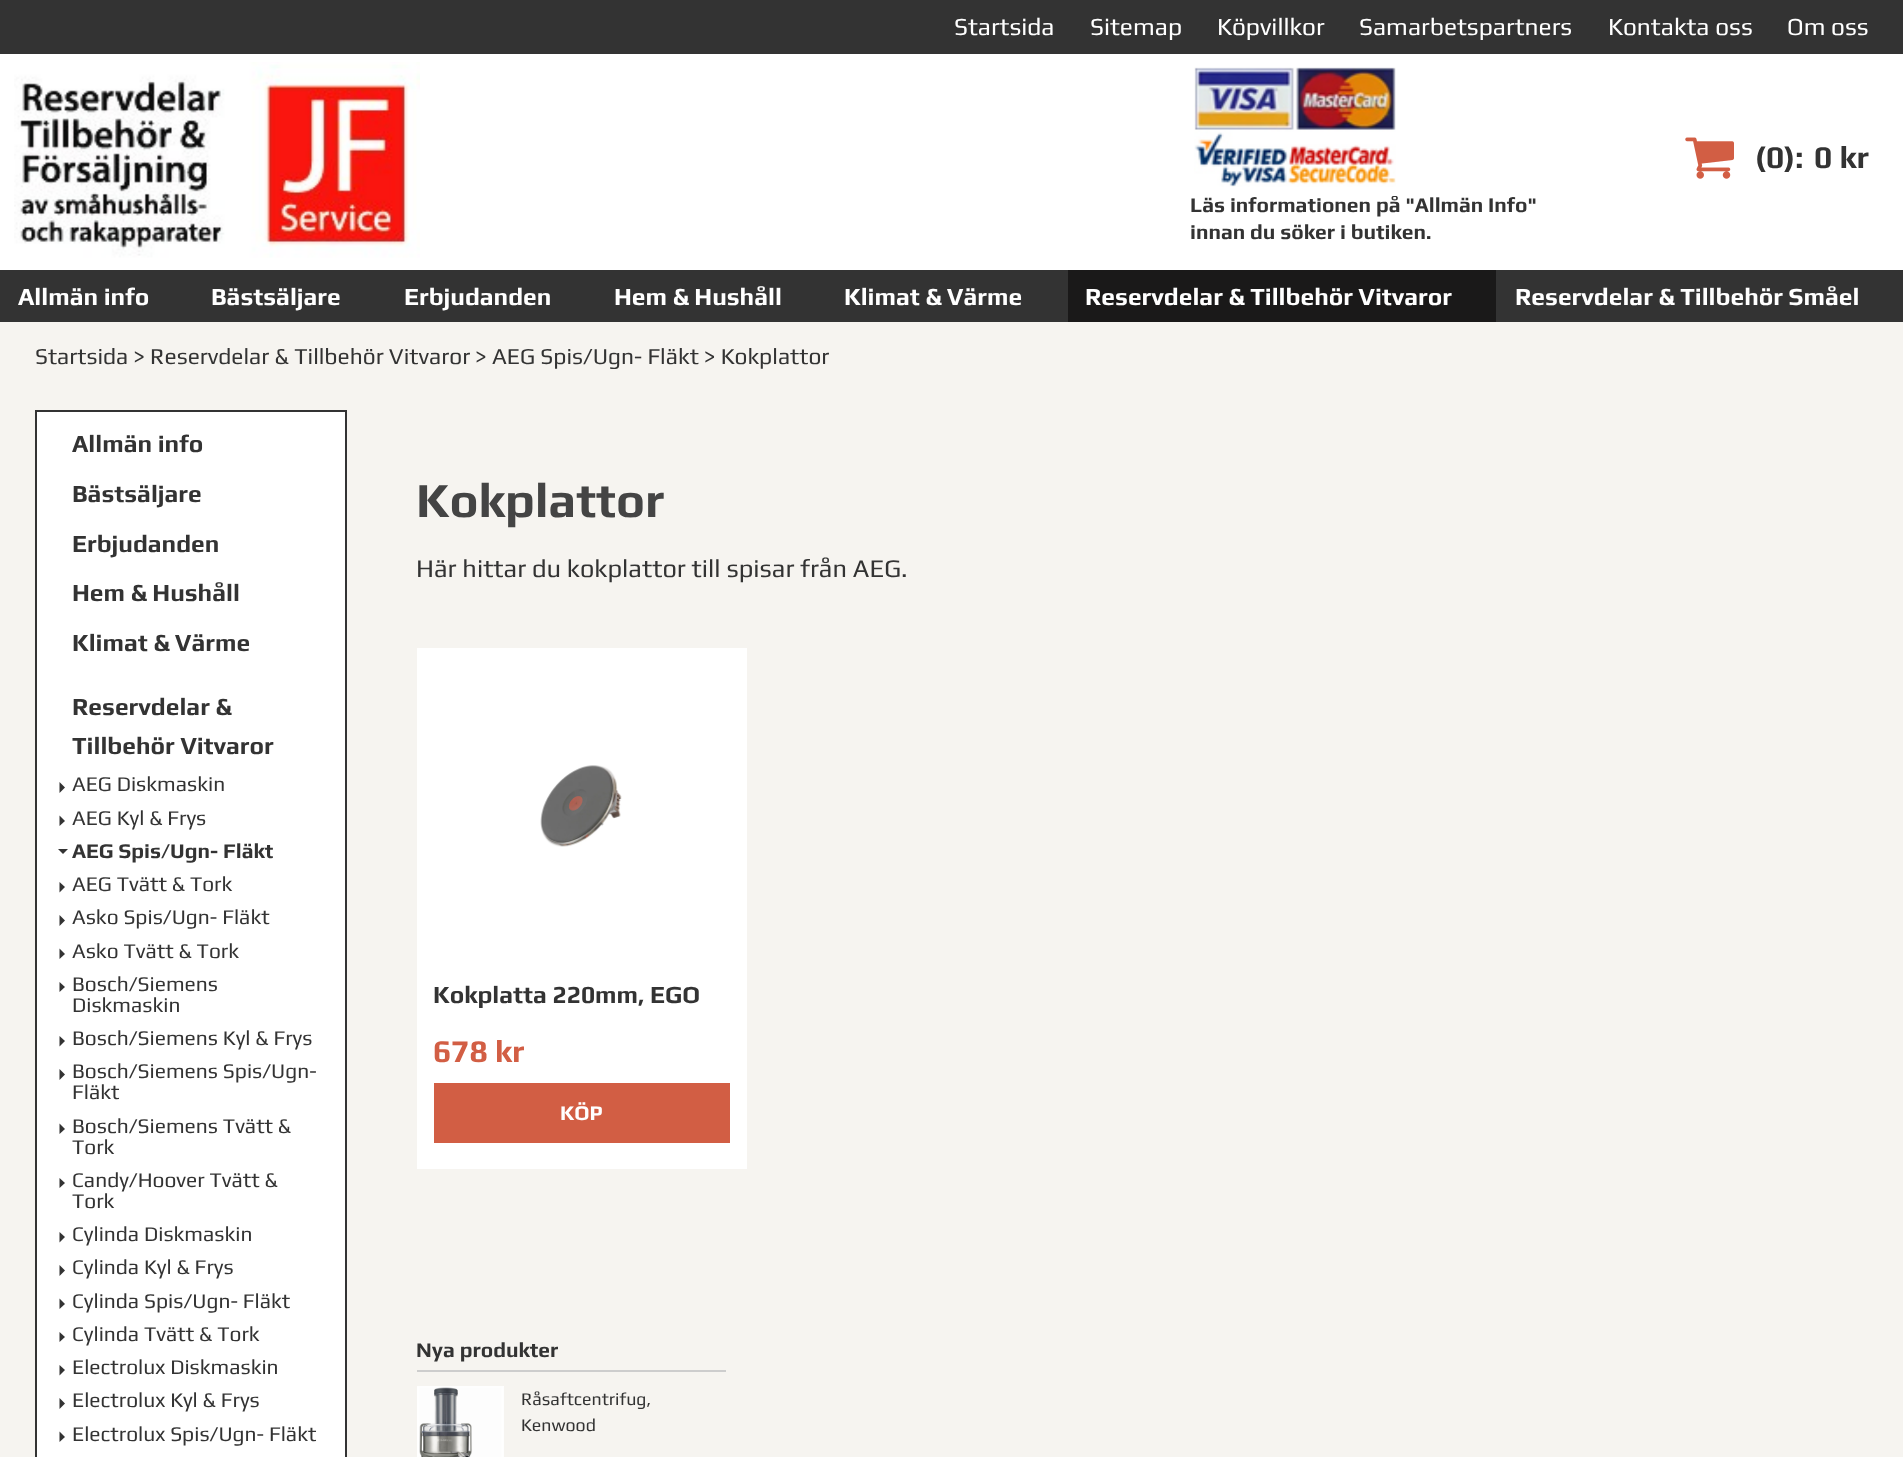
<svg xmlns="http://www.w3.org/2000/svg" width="1903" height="1457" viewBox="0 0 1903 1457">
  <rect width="100%" height="100%" fill="#f6f4f0"/>
  <path d="M0 54h1903v216H0z" fill="#fff"/>
  <path d="M0 0h1903v54H0z" fill="#333"/>
  <image x="14" y="62" width="406" height="196" href="img/1.png"/>
  <image x="1685" y="137" width="49" height="42" href="img/2.png"/>
  <image x="1194" y="67" width="202" height="120" href="img/3.png"/>
  <path d="M0 270h1903v52H0z" fill="#333"/>
  <path d="M1068 270h428v52H1068z" fill="#1a1919"/>
  <path d="M36 411h310v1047H36z" fill="#fff" stroke="#333" stroke-width="2"/>
  <path d="M59.5 793V782L65 787.5Z" fill="#333"/>
  <path d="M59.5 826V815.5L65 821Z" fill="#333"/>
  <path d="M58 849H68L63 854Z" fill="#333"/>
  <path d="M59.5 892.5V882L65 887Z" fill="#333"/>
  <path d="M59.5 926V915L65 920.5Z" fill="#333"/>
  <path d="M59.5 959V948.5L65 954Z" fill="#333"/>
  <path d="M59.5 992V982L65 987Z" fill="#333"/>
  <path d="M59.5 1046.5V1036L65 1041Z" fill="#333"/>
  <path d="M59.5 1080V1069L65 1074.5Z" fill="#333"/>
  <path d="M59.5 1134V1123.5L65 1129Z" fill="#333"/>
  <path d="M59.5 1188V1178L65 1183Z" fill="#333"/>
  <path d="M59.5 1242.5V1232L65 1237Z" fill="#333"/>
  <path d="M59.5 1276V1265L65 1270.5Z" fill="#333"/>
  <path d="M59.5 1309V1298.5L65 1304Z" fill="#333"/>
  <path d="M59.5 1342V1332L65 1337Z" fill="#333"/>
  <path d="M59.5 1375.5V1365L65 1370Z" fill="#333"/>
  <path d="M59.5 1409V1398L65 1403.5Z" fill="#333"/>
  <path d="M59.5 1442V1431.5L65 1437Z" fill="#333"/>
  <path d="M417 648h330v521H417z" fill="#fff"/>
  <image x="540" y="765" width="82" height="82" href="img/4.png"/>
  <path d="M434 1083h296v60H434z" fill="#d25e44"/>
  <path d="M417 1370h309v2H417z" fill="#cdcdcd"/>
  <image x="417" y="1386" width="87" height="71" href="img/5.png"/>
  <g font-family="Play" font-size="24.5" fill="#fff">
    <text x="954" y="35">Startsida</text>
    <text x="1090" y="35">Sitemap</text>
    <text x="1217" y="35">Köpvillkor</text>
    <text x="1359" y="35">Samarbetspartners</text>
    <text x="1608" y="35">Kontakta oss</text>
    <text x="1787" y="35">Om oss</text>
  </g>
  <g font-family="Play" font-size="31.5" font-weight="bold" fill="#333">
    <text x="1755" y="168">(0):</text>
    <text x="1814" y="168">0 kr</text>
  </g>
  <g font-family="Play" font-size="21" font-weight="bold" fill="#333">
    <text x="1190" y="212">Läs informationen på "Allmän Info"</text>
    <text x="1190" y="239">innan du söker i butiken.</text>
  </g>
  <g font-family="Play" font-size="24.5" font-weight="bold" fill="#fff">
    <text x="18" y="305">Allmän info</text>
    <text x="211" y="305">Bästsäljare</text>
    <text x="404" y="305">Erbjudanden</text>
    <text x="614" y="305">Hem &amp; Hushåll</text>
    <text x="844" y="305">Klimat &amp; Värme</text>
    <text x="1085" y="305">Reservdelar &amp; Tillbehör Vitvaror</text>
    <text x="1515" y="305">Reservdelar &amp; Tillbehör Småel</text>
  </g>
  <text x="35" y="364" font-family="Play" font-size="22.75" fill="#333">Startsida &gt; Reservdelar &amp; Tillbehör Vitvaror &gt; AEG Spis/Ugn- Fläkt &gt; Kokplattor</text>
  <g font-family="Play" font-size="24.5" font-weight="bold" fill="#333">
    <text x="72" y="452">Allmän info</text>
    <text x="72" y="502">Bästsäljare</text>
    <text x="72" y="552">Erbjudanden</text>
    <text x="72" y="601">Hem &amp; Hushåll</text>
    <text x="72" y="651">Klimat &amp; Värme</text>
    <text x="72" y="715">Reservdelar &amp;</text>
    <text x="72" y="754">Tillbehör Vitvaror</text>
  </g>
  <g font-family="Play" font-size="21" fill="#333">
    <text x="72" y="791">AEG Diskmaskin</text>
    <text x="72" y="825">AEG Kyl &amp; Frys</text>
  </g>
  <text x="72" y="858" font-family="Play" font-size="21" font-weight="bold" fill="#333">AEG Spis/Ugn- Fläkt</text>
  <g font-family="Play" font-size="21" fill="#333">
    <text x="72" y="891">AEG Tvätt &amp; Tork</text>
    <text x="72" y="924">Asko Spis/Ugn- Fläkt</text>
    <text x="72" y="958">Asko Tvätt &amp; Tork</text>
    <text x="72" y="991">Bosch/Siemens</text>
    <text x="72" y="1012">Diskmaskin</text>
    <text x="72" y="1045">Bosch/Siemens Kyl &amp; Frys</text>
    <text x="72" y="1078">Bosch/Siemens Spis/Ugn-</text>
    <text x="72" y="1099">Fläkt</text>
    <text x="72" y="1133">Bosch/Siemens Tvätt &amp;</text>
    <text x="72" y="1154">Tork</text>
    <text x="72" y="1187">Candy/Hoover Tvätt &amp;</text>
    <text x="72" y="1208">Tork</text>
    <text x="72" y="1241">Cylinda Diskmaskin</text>
    <text x="72" y="1274">Cylinda Kyl &amp; Frys</text>
    <text x="72" y="1308">Cylinda Spis/Ugn- Fläkt</text>
    <text x="72" y="1341">Cylinda Tvätt &amp; Tork</text>
    <text x="72" y="1374">Electrolux Diskmaskin</text>
    <text x="72" y="1407">Electrolux Kyl &amp; Frys</text>
    <text x="72" y="1441">Electrolux Spis/Ugn- Fläkt</text>
  </g>
  <text x="416" y="517" font-family="Play" font-size="49" font-weight="bold" fill="#444">Kokplattor</text>
  <text x="416" y="577" font-family="Play" font-size="25.4" fill="#333">Här hittar du kokplattor till spisar från AEG.</text>
  <text x="433" y="1003" font-family="Play" font-size="24.5" font-weight="bold" fill="#333">Kokplatta 220mm, EGO</text>
  <text x="433" y="1062" font-family="Play" font-size="31.5" font-weight="bold" fill="#d25e44">678 kr</text>
  <text x="560" y="1120" font-family="Play" font-size="21" font-weight="bold" fill="#fff">KÖP</text>
  <text x="416" y="1357" font-family="Play" font-size="21" font-weight="bold" fill="#333">Nya produkter</text>
  <g font-family="Play" font-size="17.75" fill="#333">
    <text x="521" y="1405">Råsaftcentrifug,</text>
    <text x="521" y="1431">Kenwood</text>
  </g>
</svg>
